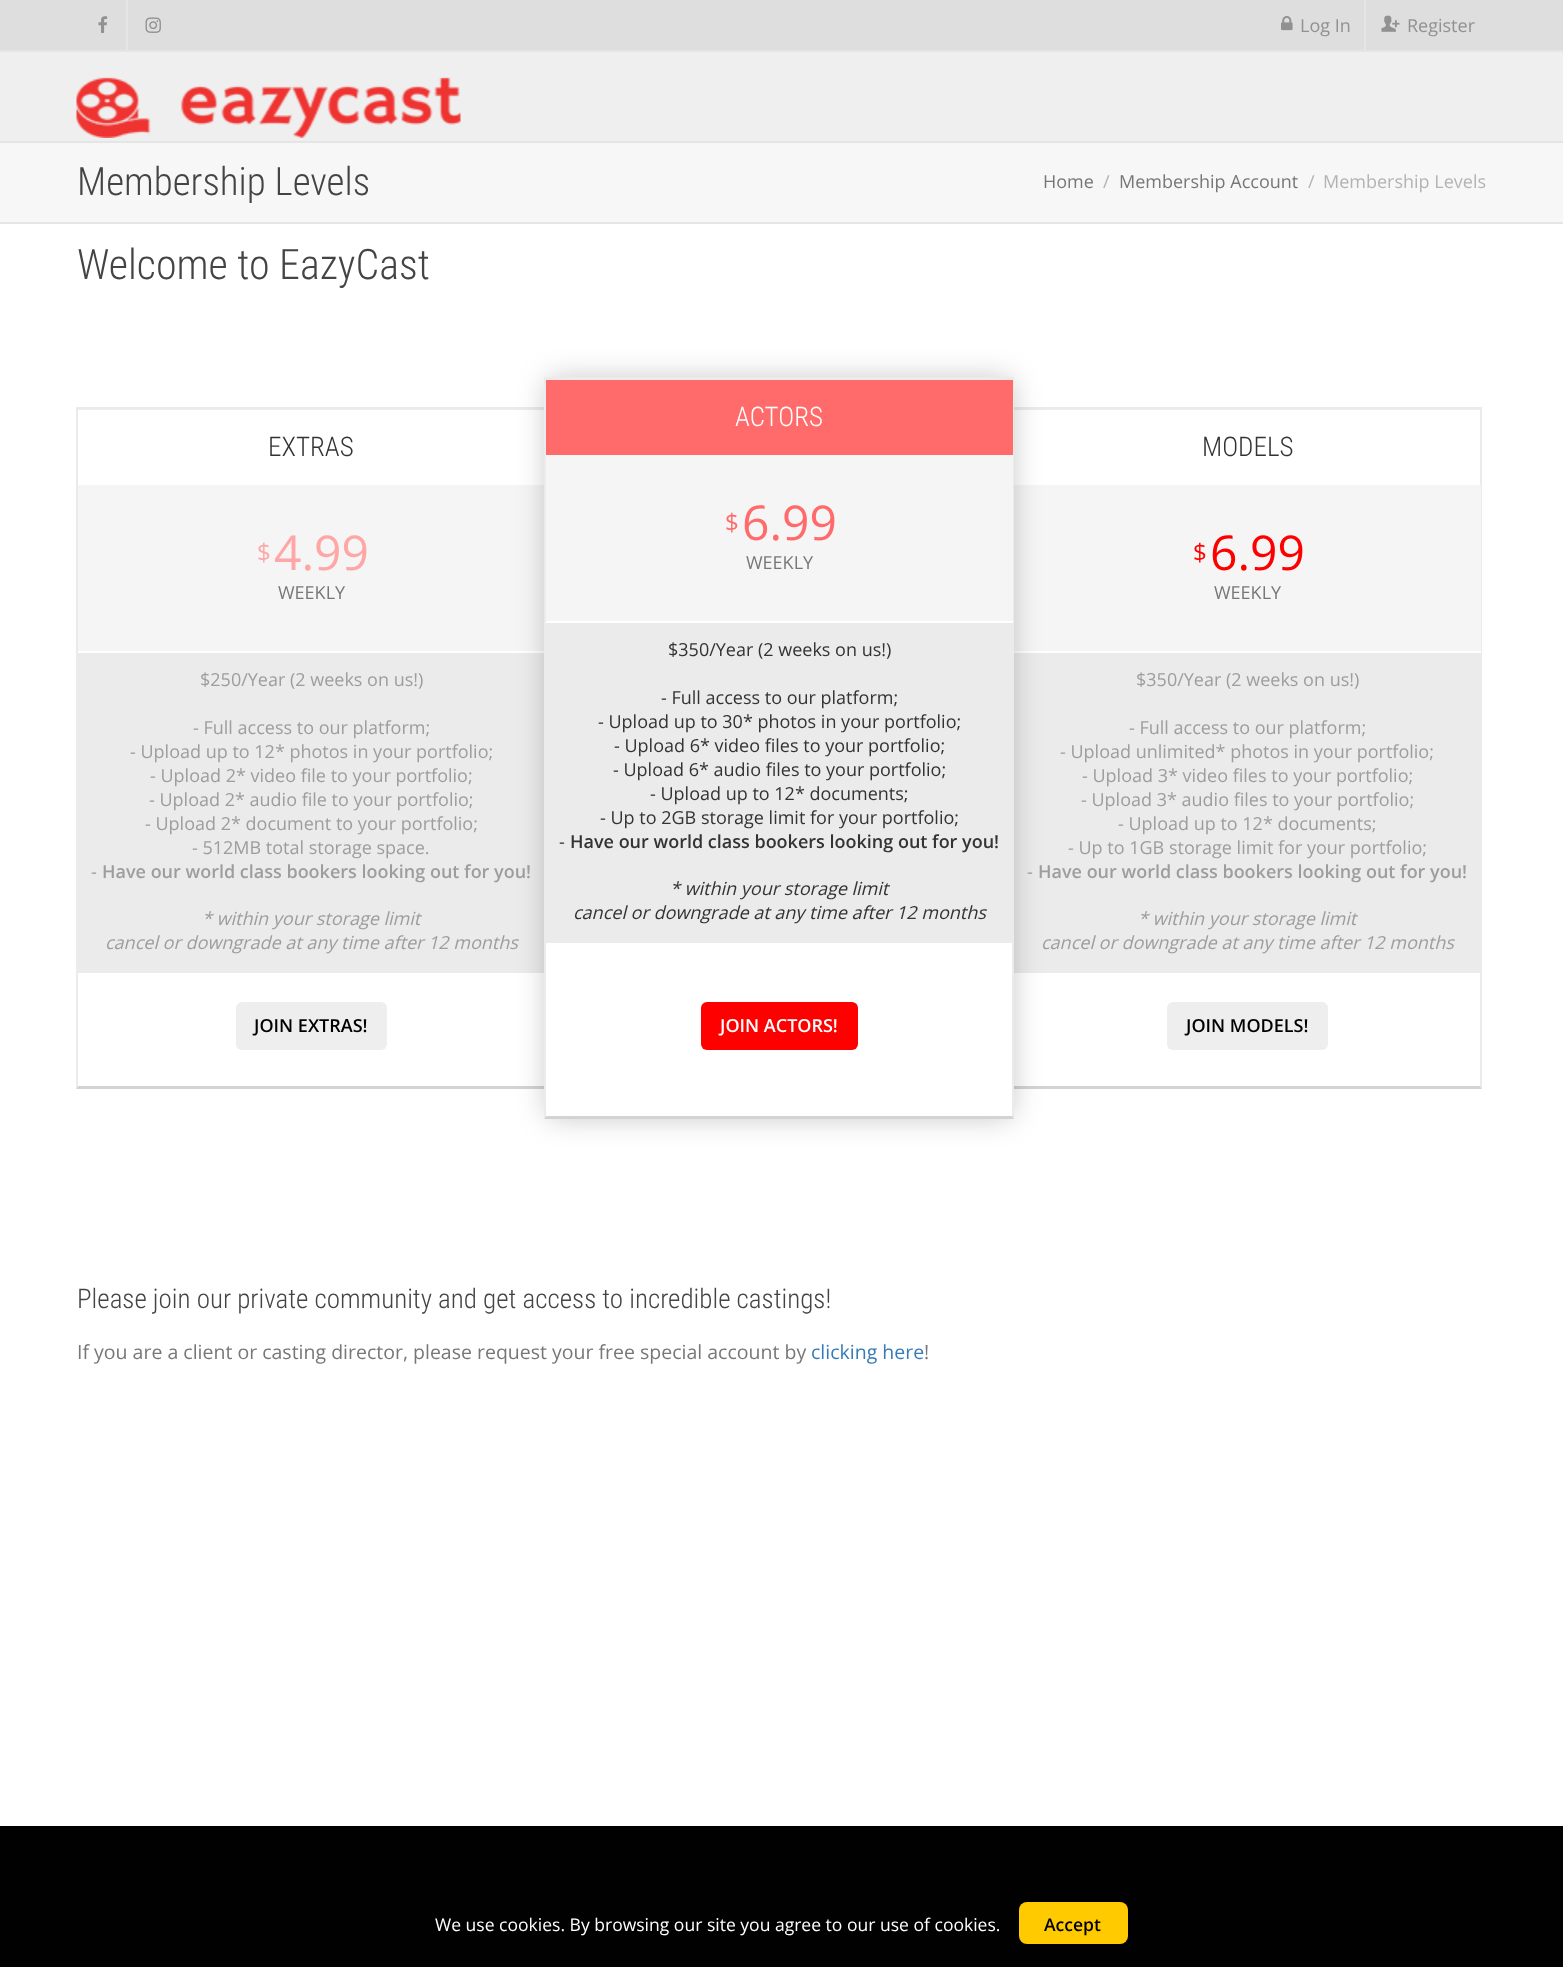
<svg xmlns="http://www.w3.org/2000/svg" width="1563" height="1967" viewBox="0 0 1563 1967">
  <rect width="100%" height="100%" fill="#fff"/>
  <path d="M0 0h1563v50H0z" fill="#dedede"/>
  <path d="M0 50h1563v2H0z" fill="#e5e5e5"/>
  <path d="M126 0h2v50H126z" fill="#e5e5e5"/>
  <image x="98" y="16" width="10" height="17" href="img/1.png"/>
  <image x="145" y="17" width="16" height="16" href="img/2.png"/>
  <path d="M1364 0h2v50H1364z" fill="#e5e5e5"/>
  <image x="1281" y="16" width="12" height="15" href="img/3.png"/>
  <image x="1381" y="15" width="19" height="17" href="img/4.png"/>
  <path d="M0 52h1563v89H0z" fill="#efefef"/>
  <path d="M0 141h1563v2H0z" fill="#e5e5e5"/>
  <image x="76" y="77" width="385" height="61" href="img/5.png"/>
  <path d="M0 143h1563v79H0z" fill="#f7f7f7"/>
  <path d="M0 222h1563v2H0z" fill="#e5e5e5"/>
  <path d="M77 407h469v3H77z" fill="#ebebeb"/>
  <path d="M546 1089H76L78 1086H544Z" fill="#d3d3d3"/>
  <path d="M76 1089V406L78 410V1086Z" fill="#ebebeb"/>
  <path d="M78 485h466v166H78z" fill="#f5f5f5"/>
  <path d="M78 971h467v2H78z" fill="#ebebeb"/>
  <path d="M78 653h466v318H78z" fill="#ebebeb"/>
  <rect x="236" y="1002" width="151" height="48" rx="6" fill="#eee"/>
  <path d="M1013 407h469v3H1013z" fill="#ebebeb"/>
  <path d="M1482 406V1089L1480 1086V410Z" fill="#ebebeb"/>
  <path d="M1482 1089H1012L1014 1086H1480Z" fill="#d3d3d3"/>
  <path d="M1014 485h467v166H1014z" fill="#f5f5f5"/>
  <path d="M1014 971h467v2H1014z" fill="#ebebeb"/>
  <path d="M1014 653h466v318H1014z" fill="#ebebeb"/>
  <path d="M548 380h463v736H548z" fill="#00000040" filter="blur(15px)"/>
  <path d="M546 943h466v173H546z" fill="#fff"/>
  <path d="M545 377h469v3H545z" fill="#ebebeb"/>
  <path d="M1014 376V1119L1012 1116V380Z" fill="#ebebeb"/>
  <path d="M1014 1119H544L546 1116H1012Z" fill="#d3d3d3"/>
  <path d="M544 1119V376L546 380V1116Z" fill="#ebebeb"/>
  <path d="M546 380h467v75H546z" fill="#ff6b6b"/>
  <path d="M546 455h467v166H546z" fill="#f5f5f5"/>
  <path d="M546 941h467v2H546z" fill="#ebebeb"/>
  <path d="M546 623h466v318H546z" fill="#ebebeb"/>
  <path d="M546 621h467v2H546z" fill="#fff"/>
  <rect x="701" y="1002" width="157" height="48" rx="6" fill="#f00"/>
  <path d="M1480 651h1v2H1480z" fill="#fff"/>
  <rect x="1167" y="1002" width="161" height="48" rx="6" fill="#eee"/>
  <path d="M0 1826h1563v141H0z" fill="#010101"/>
  <rect x="1019" y="1902" width="109" height="42" rx="8" fill="#ffcb00"/>
  <g font-family="Open Sans" font-size="18" fill="#919191">
    <text x="1300" y="32">Log In</text>
    <text x="1407" y="32">Register</text>
  </g>
  <text x="77" y="195" font-family="Roboto Condensed" font-size="39" font-weight="300" fill="#444">Membership Levels</text>
  <text x="1043" y="188" font-family="Open Sans" font-size="18" fill="#777">Home</text>
  <text x="1103" y="188" font-family="Open Sans" font-size="18" fill="#b3b3b3">/</text>
  <text x="1119" y="188" font-family="Open Sans" font-size="18" fill="#777">Membership Account</text>
  <g font-family="Open Sans" font-size="18" fill="#b3b3b3">
    <text x="1308" y="188">/</text>
    <text x="1323" y="188">Membership Levels</text>
  </g>
  <text x="77" y="279" font-family="Roboto Condensed" font-size="42" font-weight="300" fill="#444">Welcome to EazyCast</text>
  <text x="268" y="456" font-family="Roboto Condensed" font-size="27" font-weight="300" fill="#333">EXTRAS</text>
  <text x="257" y="561" font-family="Open Sans" font-size="24" fill="#ffa6a6">$</text>
  <text x="274" y="570" font-family="Open Sans" font-size="48" fill="#ffa6a6">4.99</text>
  <text x="278" y="599" font-family="Open Sans" font-size="18" fill="#777">WEEKLY</text>
  <g font-family="Open Sans" font-size="18" fill="#9d9d9d">
    <text x="200" y="686">$250/Year (2 weeks on us!)</text>
    <text x="193" y="734">- Full access to our platform;</text>
    <text x="130" y="758">- Upload up to 12* photos in your portfolio;</text>
    <text x="150" y="782">- Upload 2* video file to your portfolio;</text>
    <text x="149" y="806">- Upload 2* audio file to your portfolio;</text>
    <text x="145" y="830">- Upload 2* document to your portfolio;</text>
    <text x="192" y="854">- 512MB total storage space.</text>
    <text x="91" y="878">-</text>
  </g>
  <text x="102" y="878" font-family="Open Sans" font-size="18" font-weight="600" fill="#9d9d9d">Have our world class bookers looking out for you!</text>
  <g font-family="Open Sans" font-size="18" font-style="italic" fill="#9d9d9d">
    <text x="202" y="925">* within your storage limit</text>
    <text x="105" y="949">cancel or downgrade at any time after 12 months</text>
  </g>
  <text x="254" y="1032" font-family="Open Sans" font-size="18" font-weight="600" fill="#000">JOIN EXTRAS!</text>
  <text x="735" y="426" font-family="Roboto Condensed" font-size="27" font-weight="300" fill="#fff">ACTORS</text>
  <text x="725" y="531" font-family="Open Sans" font-size="24" fill="#ff6b6b">$</text>
  <text x="742" y="540" font-family="Open Sans" font-size="48" fill="#ff6b6b">6.99</text>
  <text x="746" y="569" font-family="Open Sans" font-size="18" fill="#777">WEEKLY</text>
  <g font-family="Open Sans" font-size="18" fill="#333">
    <text x="668" y="656">$350/Year (2 weeks on us!)</text>
    <text x="661" y="704">- Full access to our platform;</text>
    <text x="598" y="728">- Upload up to 30* photos in your portfolio;</text>
    <text x="614" y="752">- Upload 6* video files to your portfolio;</text>
    <text x="613" y="776">- Upload 6* audio files to your portfolio;</text>
    <text x="650" y="800">- Upload up to 12* documents;</text>
    <text x="600" y="824">- Up to 2GB storage limit for your portfolio;</text>
    <text x="559" y="848">-</text>
  </g>
  <text x="570" y="848" font-family="Open Sans" font-size="18" font-weight="600" fill="#333">Have our world class bookers looking out for you!</text>
  <g font-family="Open Sans" font-size="18" font-style="italic" fill="#333">
    <text x="670" y="895">* within your storage limit</text>
    <text x="573" y="919">cancel or downgrade at any time after 12 months</text>
  </g>
  <text x="720" y="1032" font-family="Open Sans" font-size="18" font-weight="600" fill="#fff">JOIN ACTORS!</text>
  <text x="1202" y="456" font-family="Roboto Condensed" font-size="27" font-weight="300" fill="#333">MODELS</text>
  <text x="1193" y="561" font-family="Open Sans" font-size="24" fill="#f00">$</text>
  <text x="1210" y="570" font-family="Open Sans" font-size="48" fill="#f00">6.99</text>
  <text x="1214" y="599" font-family="Open Sans" font-size="18" fill="#777">WEEKLY</text>
  <g font-family="Open Sans" font-size="18" fill="#9d9d9d">
    <text x="1136" y="686">$350/Year (2 weeks on us!)</text>
    <text x="1129" y="734">- Full access to our platform;</text>
    <text x="1060" y="758">- Upload unlimited* photos in your portfolio;</text>
    <text x="1082" y="782">- Upload 3* video files to your portfolio;</text>
    <text x="1081" y="806">- Upload 3* audio files to your portfolio;</text>
    <text x="1118" y="830">- Upload up to 12* documents;</text>
    <text x="1068" y="854">- Up to 1GB storage limit for your portfolio;</text>
    <text x="1027" y="878">-</text>
  </g>
  <text x="1038" y="878" font-family="Open Sans" font-size="18" font-weight="600" fill="#9d9d9d">Have our world class bookers looking out for you!</text>
  <g font-family="Open Sans" font-size="18" font-style="italic" fill="#9d9d9d">
    <text x="1138" y="925">* within your storage limit</text>
    <text x="1041" y="949">cancel or downgrade at any time after 12 months</text>
  </g>
  <text x="1186" y="1032" font-family="Open Sans" font-size="18" font-weight="600" fill="#000">JOIN MODELS!</text>
  <text x="77" y="1308" font-family="Roboto Condensed" font-size="27" font-weight="300" fill="#444">Please join our private community and get access to incredible castings!</text>
  <text x="77" y="1359" font-family="Open Sans" font-size="19.5" fill="#777">If you are a client or casting director, please request your free special account by</text>
  <text x="811" y="1359" font-family="Open Sans" font-size="19.5" fill="#367bb7">clicking here</text>
  <text x="924" y="1359" font-family="Open Sans" font-size="19.5" fill="#777">!</text>
  <text x="435" y="1931" font-family="Open Sans" font-size="17.55" fill="#fff">We use cookies. By browsing our site you agree to our use of cookies.</text>
  <text x="1044" y="1931" font-family="Open Sans" font-size="17.55" font-weight="600" fill="#000">Accept</text>
</svg>
